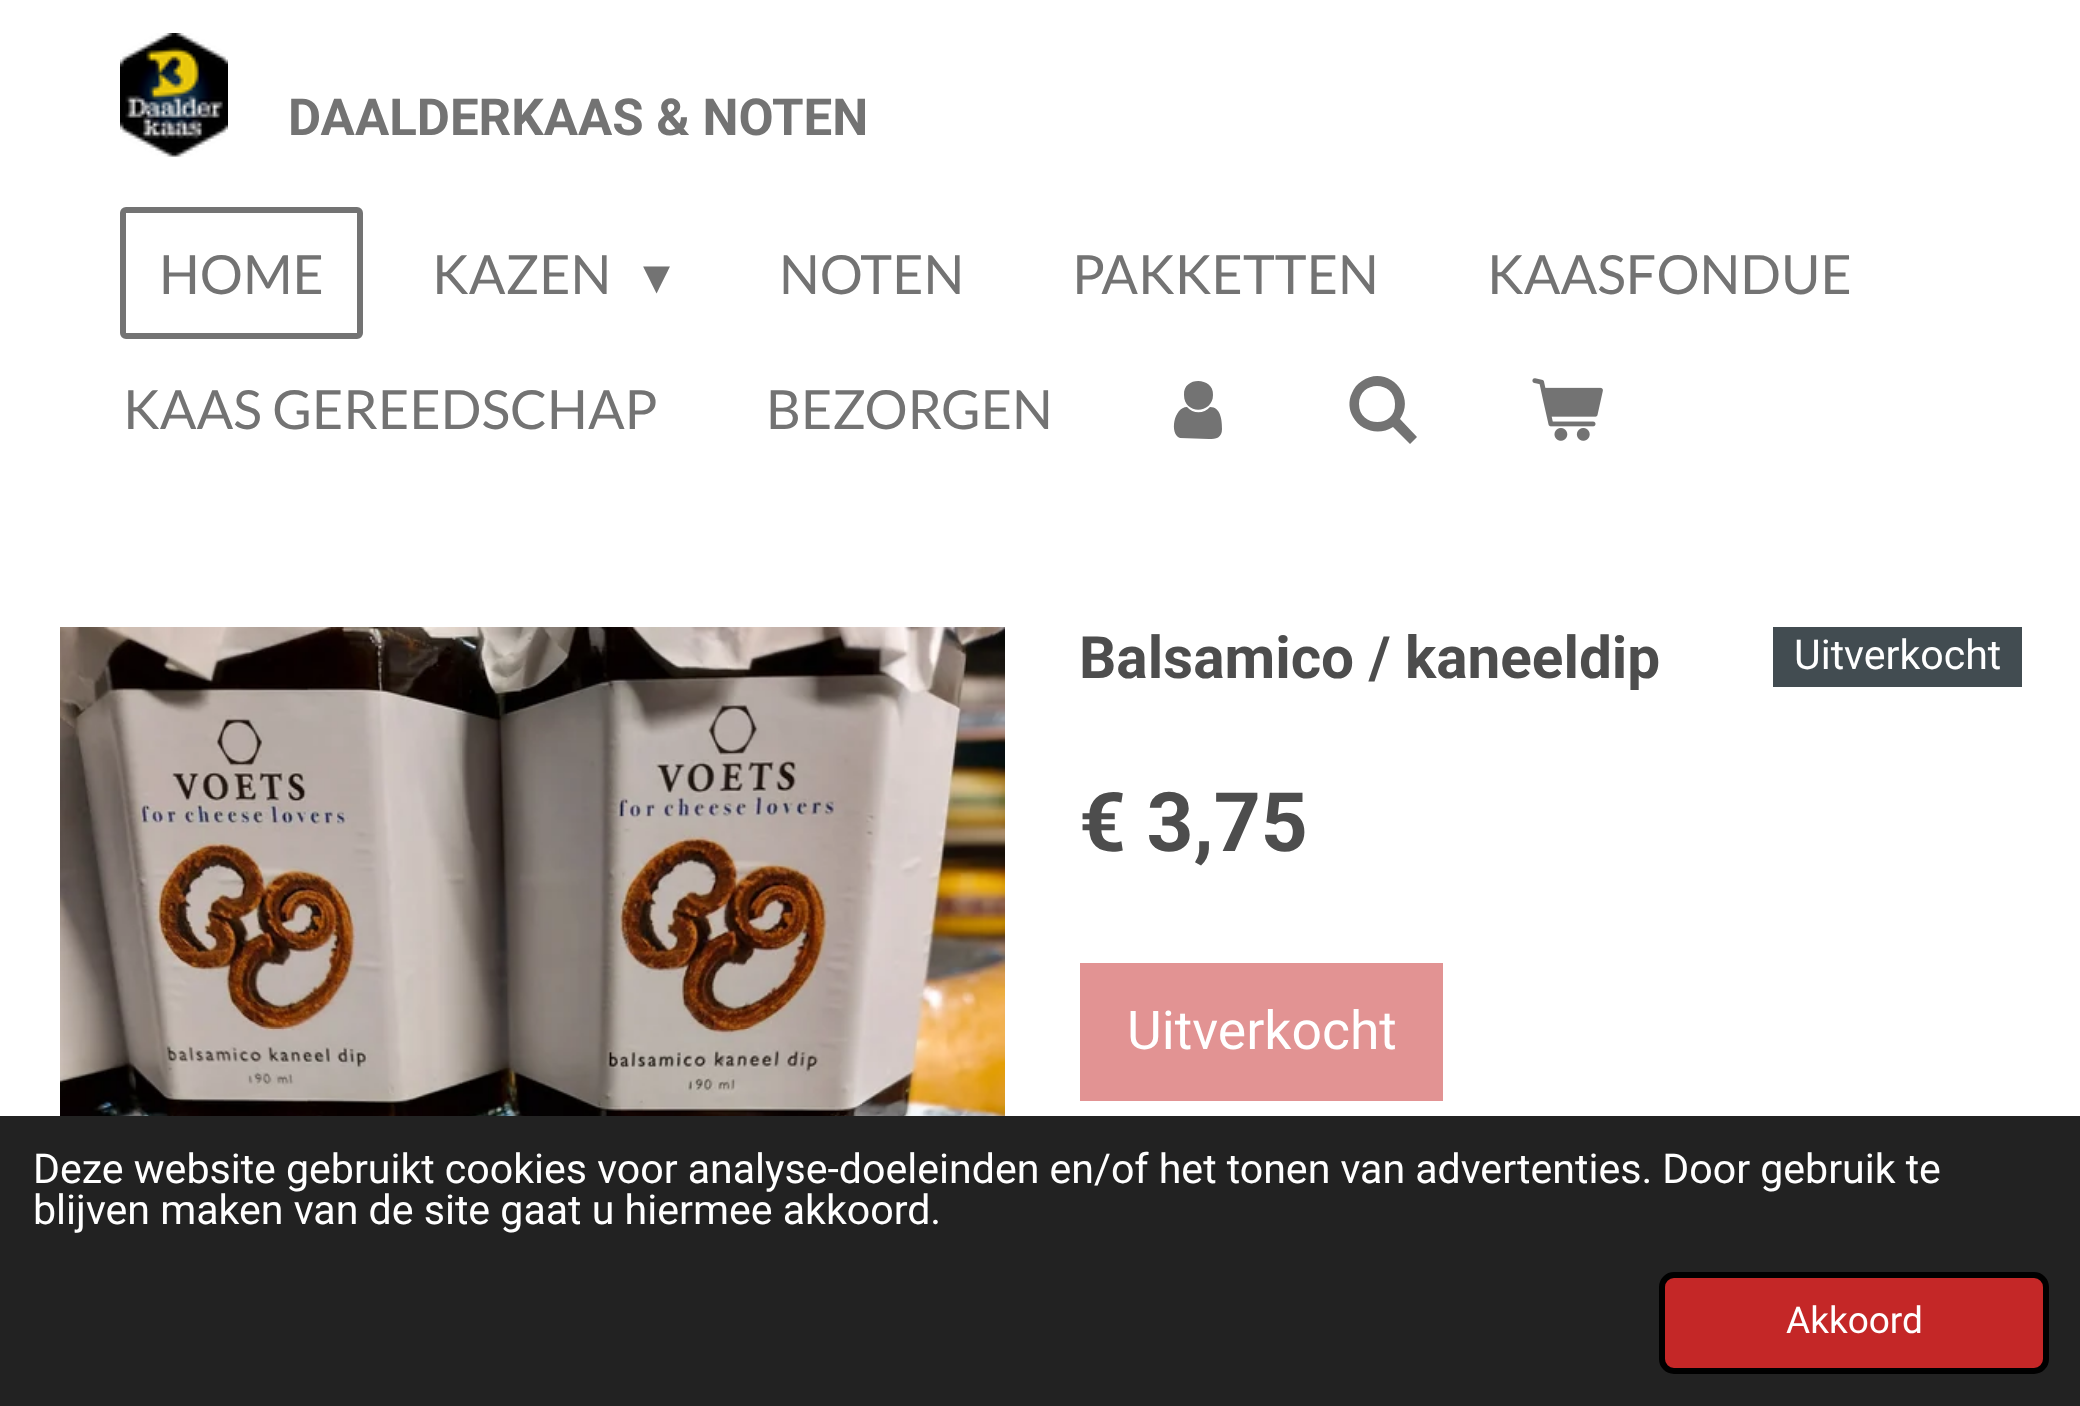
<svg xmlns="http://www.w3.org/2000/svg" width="2080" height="1406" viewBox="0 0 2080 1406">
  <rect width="100%" height="100%" fill="#fff"/>
  <image x="120" y="33" width="108" height="124" href="img/1.png"/>
  <rect x="123" y="210" width="237" height="126" rx="3" fill="none" stroke="#737373" stroke-width="6"/>
  <path d="M1222 429C1222 438 1216 439 1209 439L1180 438C1169 434 1174 407 1187 407C1193 414 1204 414 1210 407C1221 407 1222 421 1222 429ZM1213 395C1213 414 1184 415 1184 395C1183 376 1214 377 1213 395Z" fill="#737373"/>
  <path d="M1400 419L1417 437L1410 444L1393 427C1379 436 1361 431 1353 417C1349 410 1348 401 1352 393C1354 388 1357 384 1362 381C1387 364 1417 395 1400 419ZM1395 404C1395 380 1359 380 1359 404C1359 428 1396 428 1395 404Z" fill="#737373"/>
  <image x="1532" y="378" width="71" height="63" href="img/2.png"/>
  <image x="60" y="627" width="945" height="489" href="img/3.png"/>
  <path d="M1773 627h249v60H1773z" fill="#424c51"/>
  <path d="M1080 963h363v138H1080z" fill="#e29393"/>
  <path d="M0 1116h2080v290H0z" fill="#222"/>
  <rect x="1662" y="1275" width="384" height="96" rx="12" fill="#c42727" stroke="#000" stroke-width="6"/>
  <text x="288" y="135" font-family="Roboto" font-size="51" font-weight="bold" fill="#737373">DAALDERKAAS &amp; NOTEN</text>
  <g font-family="Lato" font-size="54" fill="#737373">
    <text x="159" y="294">HOME</text>
    <text x="432" y="294">KAZEN</text>
  </g>
  <text x="643" y="294" font-family="DejaVu Sans" font-size="54" fill="#737373">▾</text>
  <g font-family="Lato" font-size="54" fill="#737373">
    <text x="779" y="294">NOTEN</text>
    <text x="1072" y="294">PAKKETTEN</text>
    <text x="1487" y="294">KAASFONDUE</text>
    <text x="123" y="429">KAAS GEREEDSCHAP</text>
    <text x="766" y="429">BEZORGEN</text>
  </g>
  <text x="1079" y="678" font-family="Roboto" font-size="58.5" font-weight="bold" fill="#4d4d4d">Balsamico / kaneeldip</text>
  <text x="1794" y="669" font-family="Roboto" font-size="41.1" fill="#fff">Uitverkocht</text>
  <text x="1079" y="851" font-family="Roboto" font-size="82" font-weight="bold" fill="#4d4d4d">€ 3,75</text>
  <text x="1127" y="1049" font-family="Roboto" font-size="53.5" fill="#fff">Uitverkocht</text>
  <g font-family="Roboto" font-size="41.1" fill="#fff">
    <text x="33" y="1183" word-spacing="-0.1">Deze website gebruikt cookies voor analyse-doeleinden en/of het tonen van advertenties. Door gebruik te</text>
    <text x="33" y="1224">blijven maken van de site gaat u hiermee akkoord.</text>
  </g>
  <text x="1786" y="1333" font-family="Roboto" font-size="37" fill="#fff">Akkoord</text>
</svg>
